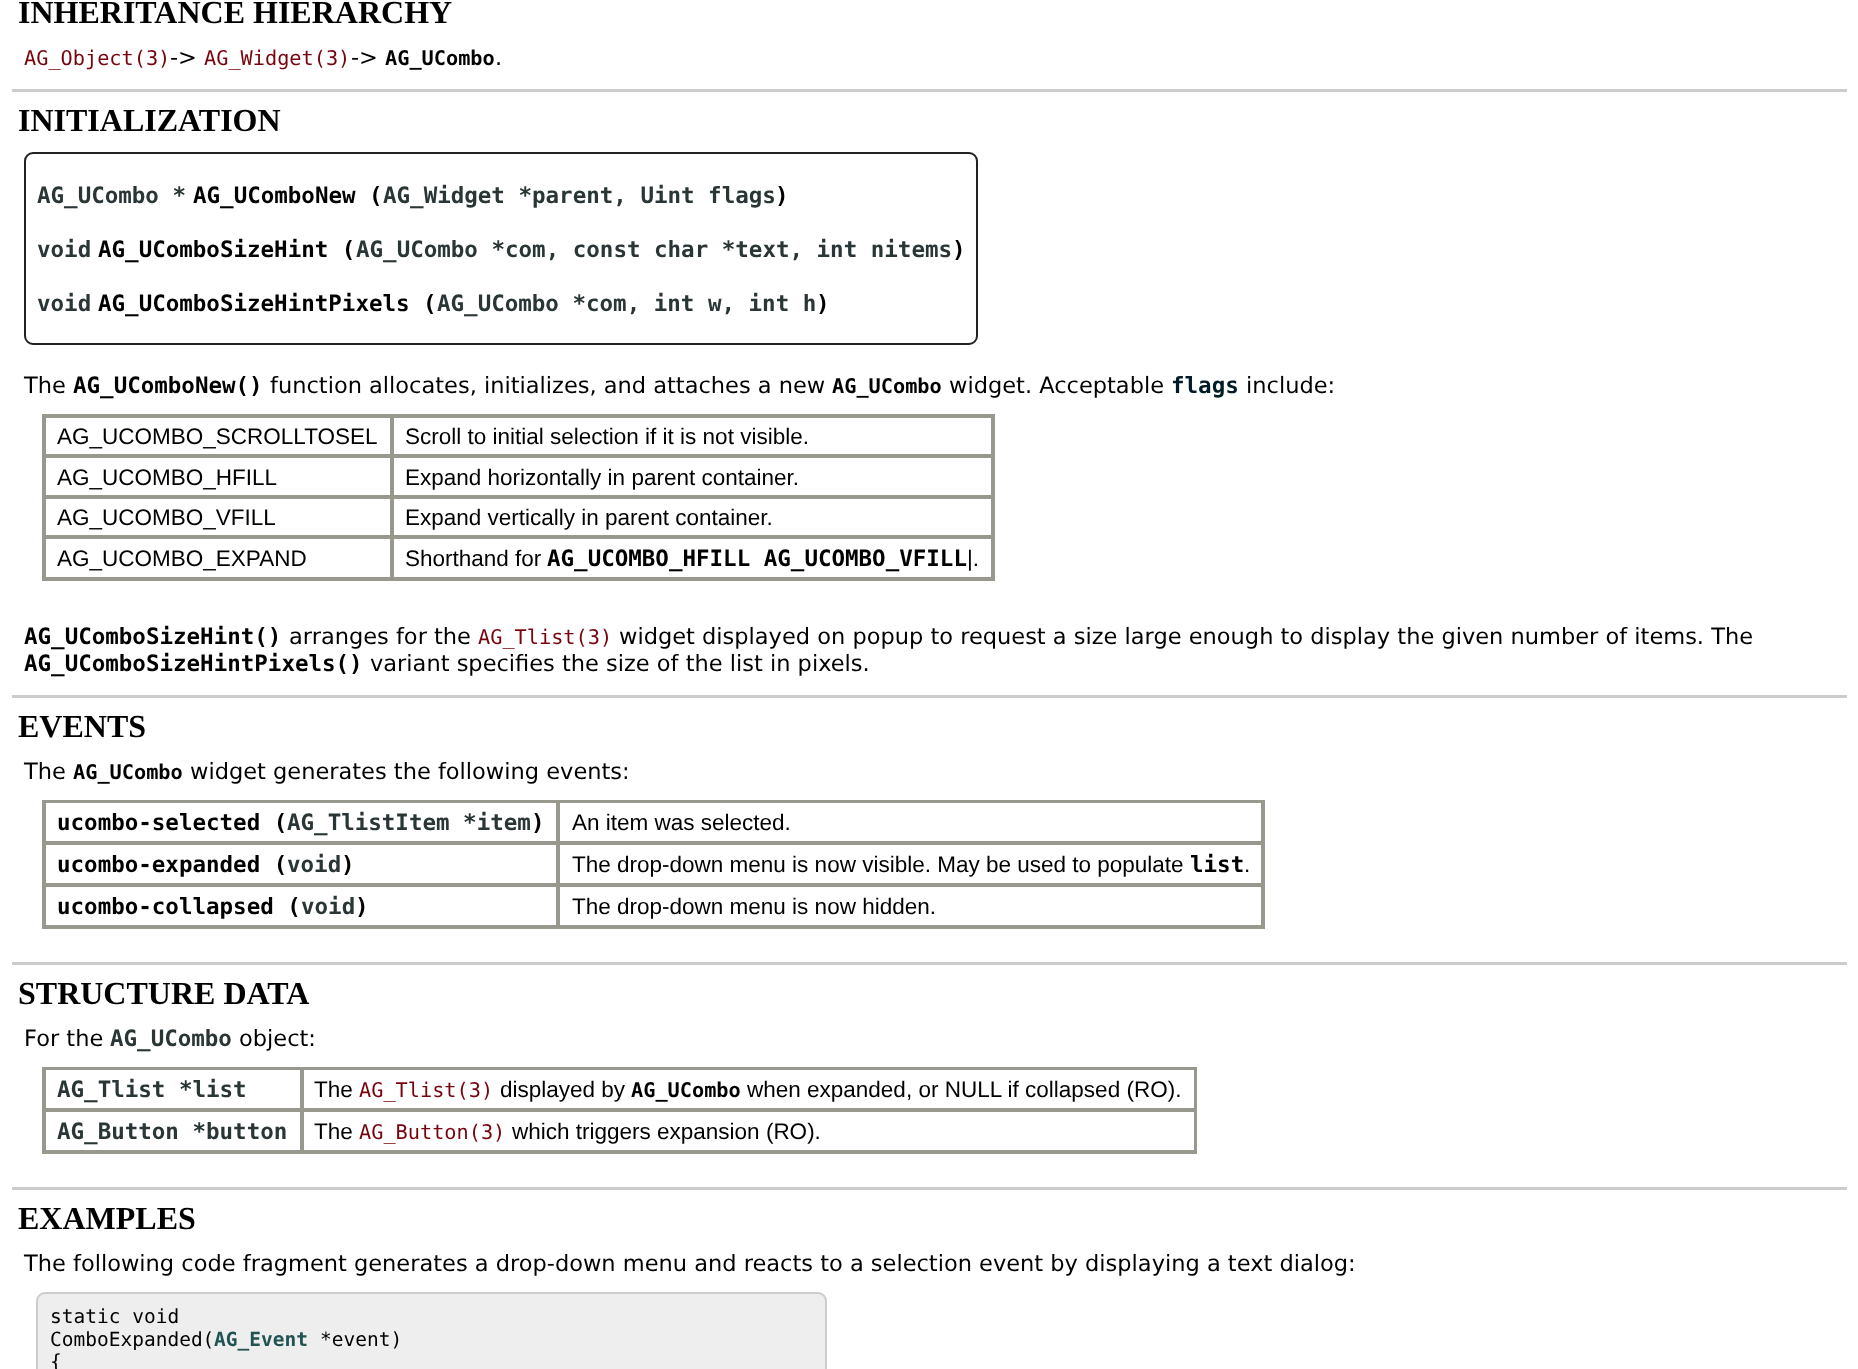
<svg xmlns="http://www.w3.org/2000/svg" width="1858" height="1369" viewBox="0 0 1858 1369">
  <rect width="100%" height="100%" fill="#fff"/>
  <path d="M12 89h1835v3H12z" fill="#ccc"/>
  <rect x="25" y="153" width="952" height="191" rx="8" fill="none" stroke="#222" stroke-width="2"/>
  <path d="M43 415h951v165H43z" fill="none" stroke="#98988e" stroke-width="2"/>
  <path d="M45 417h346v38H45z" fill="none" stroke="#98988e" stroke-width="2"/>
  <path d="M393 417h599v38H393z" fill="none" stroke="#98988e" stroke-width="2"/>
  <path d="M45 457h346v39H45z" fill="none" stroke="#98988e" stroke-width="2"/>
  <path d="M393 457h599v39H393z" fill="none" stroke="#98988e" stroke-width="2"/>
  <path d="M45 498h346v38H45z" fill="none" stroke="#98988e" stroke-width="2"/>
  <path d="M393 498h599v38H393z" fill="none" stroke="#98988e" stroke-width="2"/>
  <path d="M45 538h346v40H45z" fill="none" stroke="#98988e" stroke-width="2"/>
  <path d="M393 538h599v40H393z" fill="none" stroke="#98988e" stroke-width="2"/>
  <path d="M12 695h1835v3H12z" fill="#ccc"/>
  <path d="M43 801h1221v127H43z" fill="none" stroke="#98988e" stroke-width="2"/>
  <path d="M45 802h512v40H45z" fill="none" stroke="#98988e" stroke-width="2"/>
  <path d="M559 802h703v40H559z" fill="none" stroke="#98988e" stroke-width="2"/>
  <path d="M45 844h512v40H45z" fill="none" stroke="#98988e" stroke-width="2"/>
  <path d="M559 844h703v40H559z" fill="none" stroke="#98988e" stroke-width="2"/>
  <path d="M45 886h512v40H45z" fill="none" stroke="#98988e" stroke-width="2"/>
  <path d="M559 886h703v40H559z" fill="none" stroke="#98988e" stroke-width="2"/>
  <path d="M12 962h1835v3H12z" fill="#ccc"/>
  <path d="M43 1068h1153v85H43z" fill="none" stroke="#98988e" stroke-width="2"/>
  <path d="M45 1069h256v40H45z" fill="none" stroke="#98988e" stroke-width="2"/>
  <path d="M303 1069h892v40H303z" fill="none" stroke="#98988e" stroke-width="2"/>
  <path d="M45 1111h256v40H45z" fill="none" stroke="#98988e" stroke-width="2"/>
  <path d="M303 1111h892v40H303z" fill="none" stroke="#98988e" stroke-width="2"/>
  <path d="M12 1187h1835v3H12z" fill="#ccc"/>
  <rect x="37" y="1293" width="789" height="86" rx="8" fill="#eee" stroke="#ccc" stroke-width="2"/>
  <text x="18" y="23" font-family="Liberation Serif" font-size="32" font-weight="bold" fill="#000">INHERITANCE HIERARCHY</text>
  <text x="24" y="65" font-family="DejaVu Sans Mono" font-size="20.25" fill="#77040d">AG_Object(3)</text>
  <text x="170" y="65" font-family="DejaVu Sans" font-size="22.5" fill="#000">-&gt;</text>
  <text x="204" y="65" font-family="DejaVu Sans Mono" font-size="20.25" fill="#77040d">AG_Widget(3)</text>
  <text x="351" y="65" font-family="DejaVu Sans" font-size="22.5" fill="#000">-&gt;</text>
  <text x="385" y="65" font-family="DejaVu Sans Mono" font-size="20.25" font-weight="bold" fill="#000">AG_UCombo</text>
  <text x="495" y="65" font-family="DejaVu Sans" font-size="22.5" fill="#000">.</text>
  <text x="18" y="131" font-family="Liberation Serif" font-size="32" font-weight="bold" fill="#000">INITIALIZATION</text>
  <text x="37" y="203" font-family="DejaVu Sans Mono" font-size="22.5" font-weight="bold" fill="#2a3636">AG_UCombo *</text>
  <text x="193" y="203" font-family="DejaVu Sans Mono" font-size="22.5" font-weight="bold" fill="#000">AG_UComboNew (</text>
  <text x="383" y="203" font-family="DejaVu Sans Mono" font-size="22.5" font-weight="bold" fill="#2a3636">AG_Widget *parent, Uint flags</text>
  <text x="775" y="203" font-family="DejaVu Sans Mono" font-size="22.5" font-weight="bold" fill="#000">)</text>
  <text x="37" y="257" font-family="DejaVu Sans Mono" font-size="22.5" font-weight="bold" fill="#2a3636">void</text>
  <text x="98" y="257" font-family="DejaVu Sans Mono" font-size="22.5" font-weight="bold" fill="#000">AG_UComboSizeHint (</text>
  <text x="356" y="257" font-family="DejaVu Sans Mono" font-size="22.5" font-weight="bold" fill="#2a3636">AG_UCombo *com, const char *text, int nitems</text>
  <text x="952" y="257" font-family="DejaVu Sans Mono" font-size="22.5" font-weight="bold" fill="#000">)</text>
  <text x="37" y="311" font-family="DejaVu Sans Mono" font-size="22.5" font-weight="bold" fill="#2a3636">void</text>
  <text x="98" y="311" font-family="DejaVu Sans Mono" font-size="22.5" font-weight="bold" fill="#000">AG_UComboSizeHintPixels (</text>
  <text x="437" y="311" font-family="DejaVu Sans Mono" font-size="22.5" font-weight="bold" fill="#2a3636">AG_UCombo *com, int w, int h</text>
  <text x="816" y="311" font-family="DejaVu Sans Mono" font-size="22.5" font-weight="bold" fill="#000">)</text>
  <text x="24" y="393" font-family="DejaVu Sans" font-size="22.5" fill="#000">The</text>
  <text x="73" y="393" font-family="DejaVu Sans Mono" font-size="22.5" font-weight="bold" fill="#000">AG_UComboNew()</text>
  <text x="270" y="393" font-family="DejaVu Sans" font-size="22.5" fill="#000">function allocates, initializes, and attaches a new</text>
  <text x="832" y="393" font-family="DejaVu Sans Mono" font-size="20.25" font-weight="bold" fill="#000">AG_UCombo</text>
  <text x="949" y="393" font-family="DejaVu Sans" font-size="22.5" fill="#000">widget. Acceptable</text>
  <text x="1171" y="393" font-family="DejaVu Sans Mono" font-size="22.5" font-weight="bold" fill="#001b28">flags</text>
  <text x="1246" y="393" font-family="DejaVu Sans" font-size="22.5" fill="#000">include:</text>
  <g font-family="Liberation Sans" font-size="22.5" fill="#000">
    <text x="57" y="444">AG_UCOMBO_SCROLLTOSEL</text>
    <text x="405" y="444">Scroll to initial selection if it is not visible.</text>
    <text x="57" y="485">AG_UCOMBO_HFILL</text>
    <text x="405" y="485">Expand horizontally in parent container.</text>
    <text x="57" y="525">AG_UCOMBO_VFILL</text>
    <text x="405" y="525">Expand vertically in parent container.</text>
    <text x="57" y="566">AG_UCOMBO_EXPAND</text>
    <text x="405" y="566">Shorthand for</text>
  </g>
  <text x="547" y="566" font-family="DejaVu Sans Mono" font-size="22.5" font-weight="bold" fill="#000">AG_UCOMBO_HFILL AG_UCOMBO_VFILL</text>
  <text x="967" y="566" font-family="Liberation Sans" font-size="22.5" fill="#000">|.</text>
  <text x="24" y="644" font-family="DejaVu Sans Mono" font-size="22.5" font-weight="bold" fill="#000">AG_UComboSizeHint()</text>
  <text x="289" y="644" font-family="DejaVu Sans" font-size="22.5" fill="#000">arranges for the</text>
  <text x="478" y="644" font-family="DejaVu Sans Mono" font-size="20.25" fill="#77040d">AG_Tlist(3)</text>
  <text x="619" y="644" font-family="DejaVu Sans" font-size="22.5" fill="#000">widget displayed on popup to request a size large enough to display the given number of items. The</text>
  <text x="24" y="671" font-family="DejaVu Sans Mono" font-size="22.5" font-weight="bold" fill="#000">AG_UComboSizeHintPixels()</text>
  <text x="370" y="671" font-family="DejaVu Sans" font-size="22.5" fill="#000">variant specifies the size of the list in pixels.</text>
  <text x="18" y="737" font-family="Liberation Serif" font-size="32" font-weight="bold" fill="#000">EVENTS</text>
  <text x="24" y="779" font-family="DejaVu Sans" font-size="22.5" fill="#000">The</text>
  <text x="73" y="779" font-family="DejaVu Sans Mono" font-size="20.25" font-weight="bold" fill="#000">AG_UCombo</text>
  <text x="190" y="779" font-family="DejaVu Sans" font-size="22.5" fill="#000">widget generates the following events:</text>
  <text x="57" y="830" font-family="DejaVu Sans Mono" font-size="22.5" font-weight="bold" fill="#000">ucombo-selected (</text>
  <text x="287" y="830" font-family="DejaVu Sans Mono" font-size="22.5" font-weight="bold" fill="#2a3636">AG_TlistItem *item</text>
  <text x="531" y="830" font-family="DejaVu Sans Mono" font-size="22.5" font-weight="bold" fill="#000">)</text>
  <text x="572" y="830" font-family="Liberation Sans" font-size="22.5" fill="#000">An item was selected.</text>
  <text x="57" y="872" font-family="DejaVu Sans Mono" font-size="22.5" font-weight="bold" fill="#000">ucombo-expanded (</text>
  <text x="287" y="872" font-family="DejaVu Sans Mono" font-size="22.5" font-weight="bold" fill="#2a3636">void</text>
  <text x="341" y="872" font-family="DejaVu Sans Mono" font-size="22.5" font-weight="bold" fill="#000">)</text>
  <text x="572" y="872" font-family="Liberation Sans" font-size="22.5" fill="#000">The drop-down menu is now visible. May be used to populate</text>
  <text x="1190" y="872" font-family="DejaVu Sans Mono" font-size="22.5" font-weight="bold" fill="#000">list</text>
  <text x="1244" y="872" font-family="Liberation Sans" font-size="22.5" fill="#000">.</text>
  <text x="57" y="914" font-family="DejaVu Sans Mono" font-size="22.5" font-weight="bold" fill="#000">ucombo-collapsed (</text>
  <text x="301" y="914" font-family="DejaVu Sans Mono" font-size="22.5" font-weight="bold" fill="#2a3636">void</text>
  <text x="355" y="914" font-family="DejaVu Sans Mono" font-size="22.5" font-weight="bold" fill="#000">)</text>
  <text x="572" y="914" font-family="Liberation Sans" font-size="22.5" fill="#000">The drop-down menu is now hidden.</text>
  <text x="18" y="1004" font-family="Liberation Serif" font-size="32" font-weight="bold" fill="#000">STRUCTURE DATA</text>
  <text x="24" y="1046" font-family="DejaVu Sans" font-size="22.5" fill="#000">For the</text>
  <text x="110" y="1046" font-family="DejaVu Sans Mono" font-size="22.5" font-weight="bold" fill="#2a3636">AG_UCombo</text>
  <text x="239" y="1046" font-family="DejaVu Sans" font-size="22.5" fill="#000">object:</text>
  <text x="57" y="1097" font-family="DejaVu Sans Mono" font-size="22.5" font-weight="bold" fill="#2a3636">AG_Tlist *list</text>
  <text x="314" y="1097" font-family="Liberation Sans" font-size="22.5" fill="#000">The</text>
  <text x="359" y="1097" font-family="DejaVu Sans Mono" font-size="20.25" fill="#77040d">AG_Tlist(3)</text>
  <text x="500" y="1097" font-family="Liberation Sans" font-size="22.5" fill="#000">displayed by</text>
  <text x="631" y="1097" font-family="DejaVu Sans Mono" font-size="20.25" font-weight="bold" fill="#000">AG_UCombo</text>
  <text x="747" y="1097" font-family="Liberation Sans" font-size="22.5" fill="#000">when expanded, or NULL if collapsed (RO).</text>
  <text x="57" y="1139" font-family="DejaVu Sans Mono" font-size="22.5" font-weight="bold" fill="#2a3636">AG_Button *button</text>
  <text x="314" y="1139" font-family="Liberation Sans" font-size="22.5" fill="#000">The</text>
  <text x="359" y="1139" font-family="DejaVu Sans Mono" font-size="20.25" fill="#77040d">AG_Button(3)</text>
  <text x="512" y="1139" font-family="Liberation Sans" font-size="22.5" fill="#000">which triggers expansion (RO).</text>
  <text x="18" y="1229" font-family="Liberation Serif" font-size="32" font-weight="bold" fill="#000">EXAMPLES</text>
  <text x="24" y="1271" font-family="DejaVu Sans" font-size="22.5" fill="#000">The following code fragment generates a drop-down menu and reacts to a selection event by displaying a text dialog:</text>
  <g font-family="DejaVu Sans Mono" font-size="19.5" fill="#000">
    <text x="50" y="1323">static void</text>
    <text x="50" y="1346">ComboExpanded(</text>
  </g>
  <text x="214" y="1346" font-family="DejaVu Sans Mono" font-size="19.5" font-weight="bold" fill="#215353">AG_Event</text>
  <g font-family="DejaVu Sans Mono" font-size="19.5" fill="#000">
    <text x="320" y="1346">*event)</text>
    <text x="50" y="1368">{</text>
  </g>
</svg>
